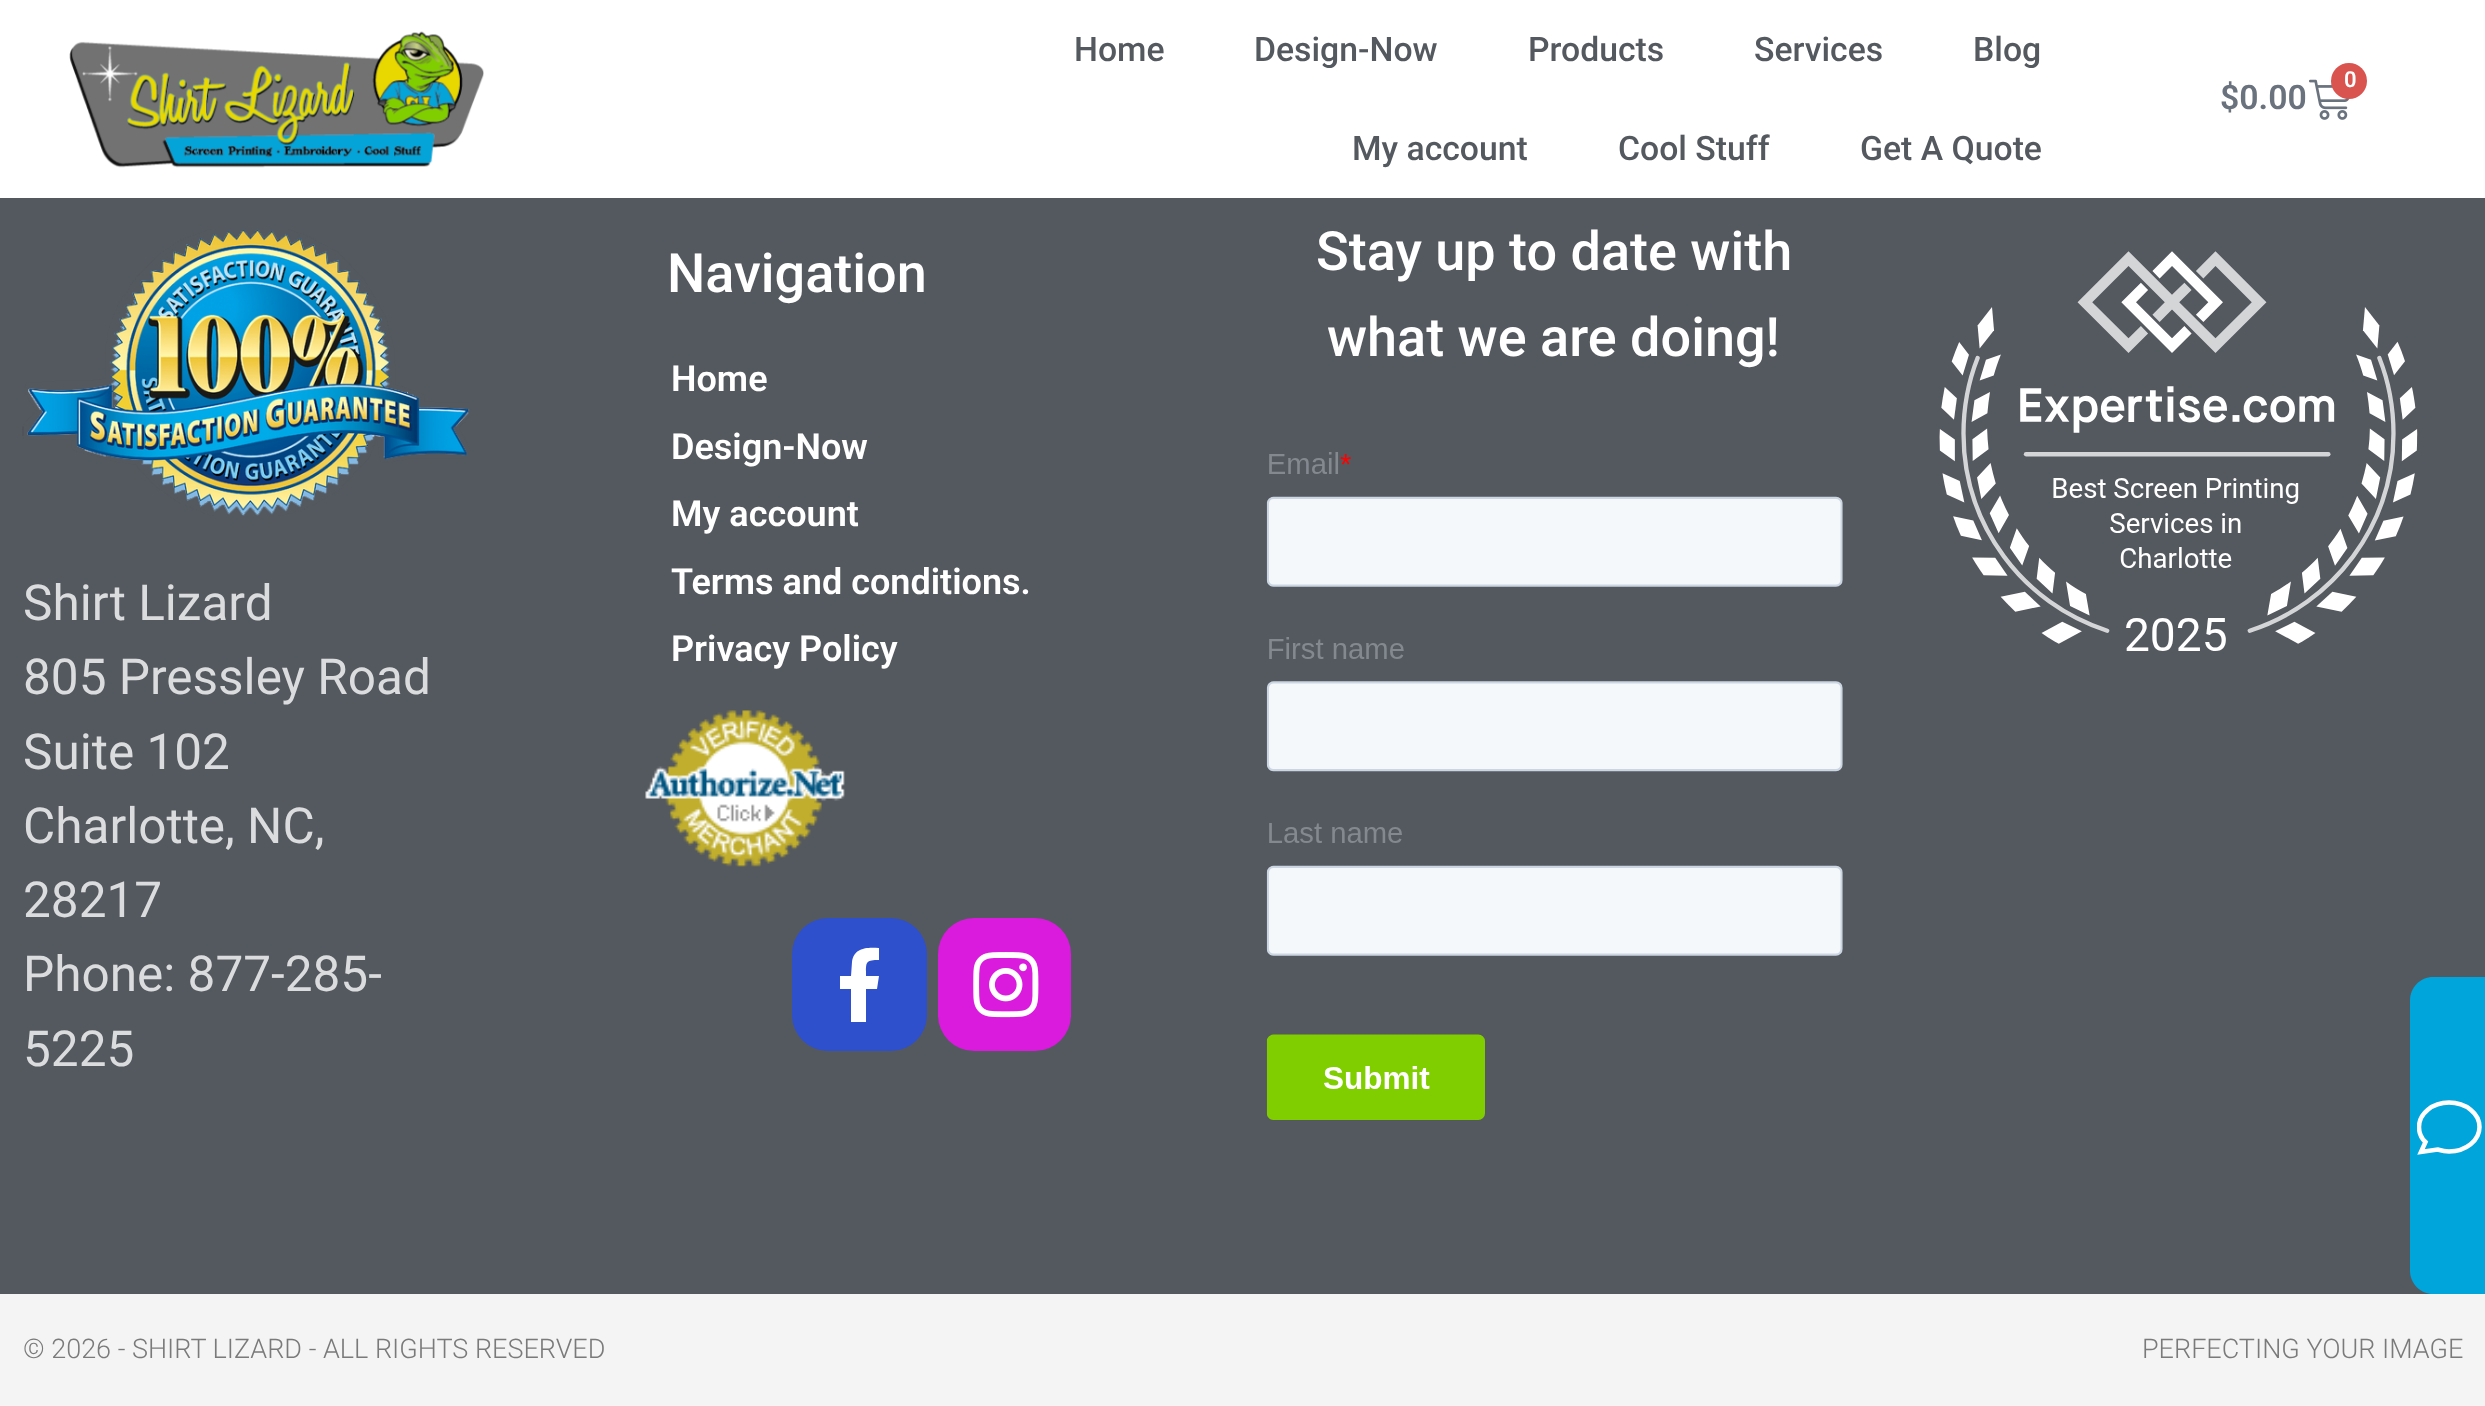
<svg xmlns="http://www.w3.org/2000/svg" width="2485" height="1406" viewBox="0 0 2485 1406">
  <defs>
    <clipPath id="clip1"><path d="M2417 1100h65v57H2417z"/></clipPath>
  </defs>
  <rect width="100%" height="100%" fill="#54595f"/>
  <path d="M0 0h2485v198H0z" fill="#fff"/>
  <image x="69" y="31" width="415" height="137" href="img/1.png"/>
  <image x="2309" y="79" width="41" height="41" href="img/2.png"/>
  <circle cx="2349" cy="81" r="18" fill="#d9534f"/>
  <image x="645" y="710" width="200" height="157" href="img/3.png"/>
  <rect x="792" y="918" width="135" height="133" rx="36" fill="#2e50cc"/>
  <path d="M877 989H866V1022H851V989H840V976H851L852 962C854 947 868 947 879 948V960C865 960 866 962 866 976H879Z" fill="#fff"/>
  <rect x="938" y="918" width="133" height="133" rx="36" fill="#da1add"/>
  <image x="973" y="952" width="66" height="66" href="img/4.png"/>
  <image x="1266" y="452" width="577" height="668" href="img/5.png"/>
  <image x="1939" y="251" width="479" height="400" href="img/6.png"/>
  <image x="22" y="229" width="448" height="287" href="img/7.png"/>
  <path d="M0 1294h2485v112H0z" fill="#f4f4f4"/>
  <path d="M2433 977H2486V1294H2433C2420.5 1294 2410 1283.5 2410 1271V1000C2410 987.5 2420.5 977 2433 977Z" fill="#00a5db"/>
  <g clip-path="url(#clip1)">
    <path d="M2425.5 1142C2421 1138 2419 1132.5 2419 1127C2419 1113.5 2432.5 1102.5 2449 1102.5C2466 1102.5 2479.5 1113.5 2479.5 1127C2479.5 1140.5 2466 1151.5 2449 1151.5C2445 1151.5 2441 1150.5 2437.5 1149.5L2421 1152Z" fill="none" stroke="#fff" stroke-width="4.5"/>
  </g>
  <g font-family="Roboto" font-size="33.75" font-weight="500" fill="#54595f">
    <text x="1074" y="61">Home</text>
    <text x="1254" y="61">Design-Now</text>
    <text x="1528" y="61">Products</text>
    <text x="1754" y="61">Services</text>
    <text x="1973" y="61">Blog</text>
    <text x="1352" y="160">My account</text>
    <text x="1618" y="160">Cool Stuff</text>
    <text x="1860" y="160">Get A Quote</text>
  </g>
  <text x="2344" y="87" font-family="Roboto" font-size="22" font-weight="600" fill="#fff">0</text>
  <text x="2220" y="109" font-family="Roboto" font-size="33.75" font-weight="600" fill="#69727d">$0.00</text>
  <text x="667" y="292" font-family="Roboto" font-size="54" font-weight="500" fill="#fff">Navigation</text>
  <g font-family="Roboto" font-size="36" font-weight="600" fill="#fff">
    <text x="671" y="391">Home</text>
    <text x="671" y="459">Design-Now</text>
    <text x="671" y="526">My account</text>
    <text x="671" y="594">Terms and conditions.</text>
    <text x="671" y="661">Privacy Policy</text>
  </g>
  <g font-family="Roboto" font-size="54" font-weight="500" fill="#fff">
    <text x="1316" y="270">Stay up to date with</text>
    <text x="1327" y="356">what we are doing!</text>
  </g>
  <g font-family="Roboto" font-size="49.5" fill="#dbdcdd">
    <text x="23" y="620">Shirt Lizard</text>
    <text x="23" y="694">805 Pressley Road</text>
    <text x="23" y="769">Suite 102</text>
    <text x="23" y="843">Charlotte, NC,</text>
    <text x="23" y="917">28217</text>
    <text x="23" y="991">Phone: 877-285-</text>
    <text x="23" y="1066">5225</text>
  </g>
  <g font-family="Roboto" font-size="27" font-weight="300" fill="#7a7a7a">
    <text x="23" y="1358">© 2026 - SHIRT LIZARD - ALL RIGHTS RESERVED</text>
    <text x="2142" y="1358">PERFECTING YOUR IMAGE</text>
  </g>
</svg>
